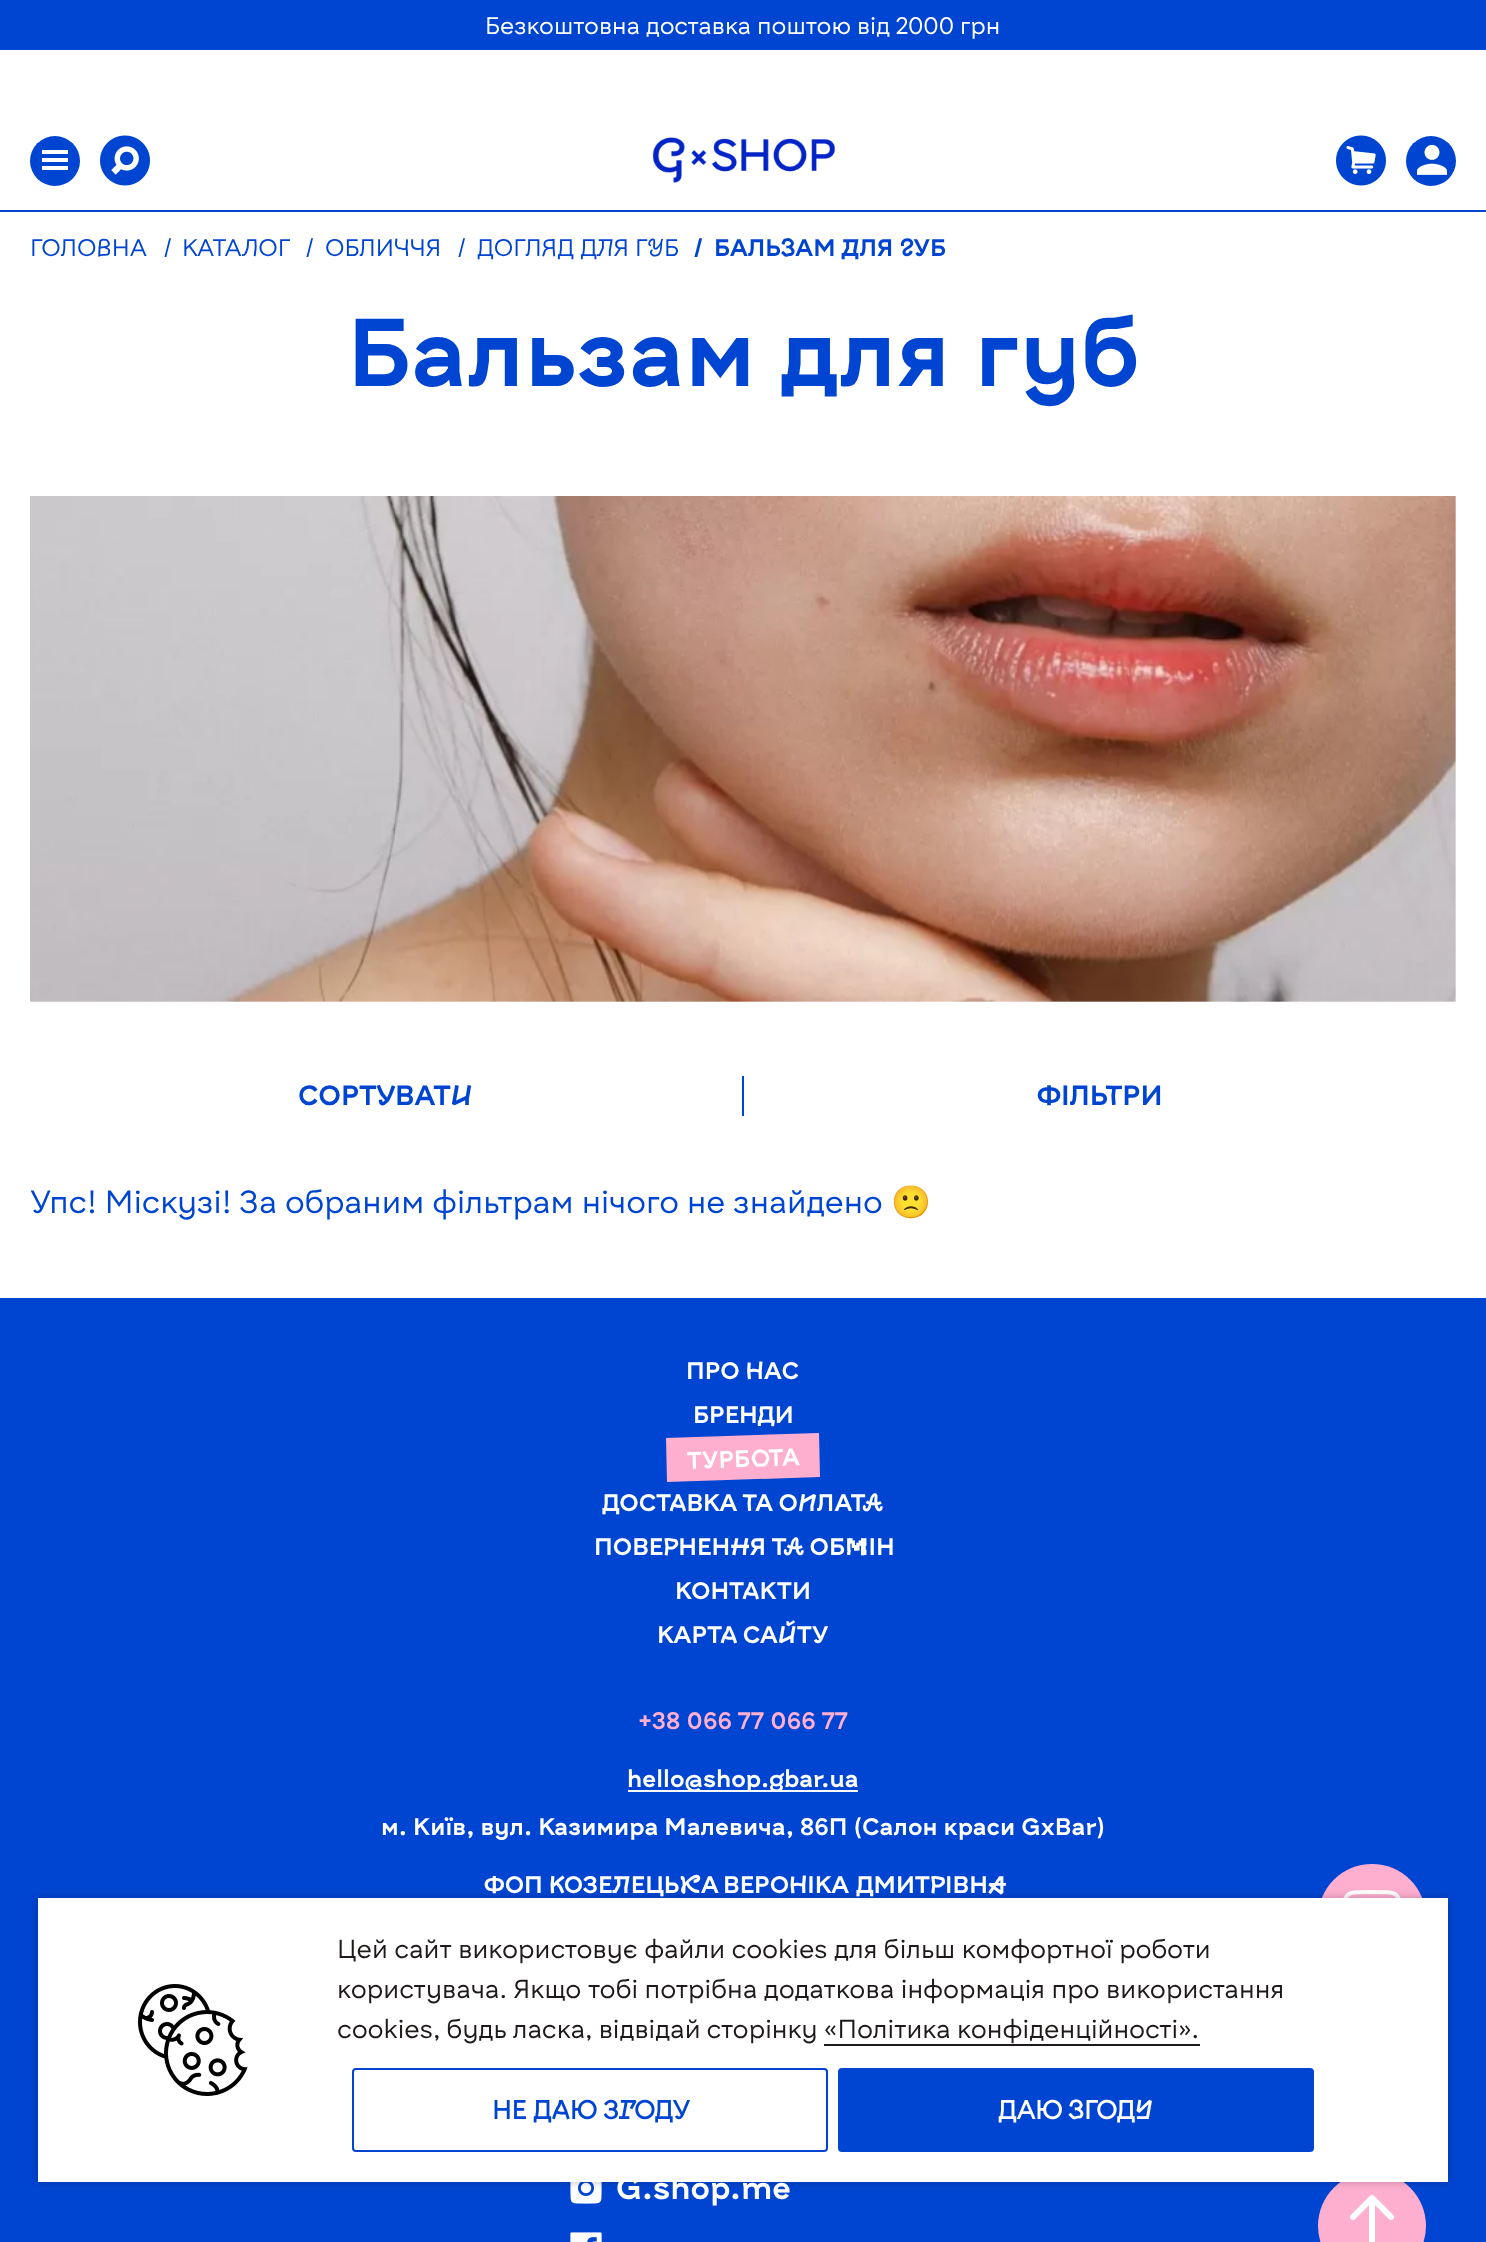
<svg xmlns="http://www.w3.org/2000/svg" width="1486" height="2242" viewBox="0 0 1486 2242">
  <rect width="100%" height="100%" fill="#fff"/>
  <path d="M0 0h1486v50H0z" fill="#0045d2"/>
  <path d="M0 210h1486v2H0z" fill="#0045d2"/>
  <circle cx="55" cy="161" r="25" fill="#0045d2"/>
  <path d="M42 158h26v4H42z" fill="#fff"/>
  <path d="M42 150h26v4H42z" fill="#fff"/>
  <path d="M42 166h26v4H42z" fill="#fff"/>
  <image x="100" y="135" width="50" height="51" href="img/1.png"/>
  <image x="652" y="137" width="184" height="46" href="img/2.png"/>
  <image x="1336" y="135" width="50" height="51" href="img/3.png"/>
  <circle cx="1431" cy="161" r="25" fill="#0045d2"/>
  <image x="1417" y="144" width="30" height="31" href="img/4.png"/>
  <image x="30" y="496" width="1426" height="506" href="img/5.png"/>
  <path d="M742 1076h2v40H742z" fill="#0045d2"/>
  <path d="M0 1298h1486v944H0z" fill="#0045d2"/>
  <path d="M666 1438L819 1433L820 1477L667 1482Z" fill="#feafd0"/>
  <path d="M628 1790h230v2H628z" fill="#fff"/>
  <image x="570" y="2182" width="32" height="22" href="img/6.png"/>
  <image x="570" y="2232" width="32" height="10" href="img/7.png"/>
  <circle cx="1372" cy="1918" r="54" fill="#feafd0"/>
  <image x="1343" y="1890" width="58" height="8" href="img/8.png"/>
  <circle cx="1372" cy="2226" r="54" fill="#feafd0"/>
  <image x="1350" y="2195" width="44" height="47" href="img/9.png"/>
  <path d="M38 1898h1410v284H38z" fill="#00000040" filter="blur(4px)"/>
  <path d="M38 1898h1410v284H38z" fill="#fff"/>
  <image x="138" y="1984" width="110" height="112" href="img/10.png"/>
  <path d="M824 2044h376v2H824z" fill="#1f1a1a"/>
  <rect x="353" y="2069" width="474" height="82" rx="3" fill="none" stroke="#0045d2" stroke-width="2"/>
  <rect x="839" y="2069" width="474" height="82" rx="3" fill="#0045d2" stroke="#0045d2" stroke-width="2"/>
  <text x="485" y="34" font-family="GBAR" font-size="24" fill="#fff">Безкоштовна доставка поштою від 2000 грн</text>
  <g font-family="GBAR" font-size="24" fill="#0045d2">
    <text x="30" y="256">ГОЛОВНА</text>
    <text x="163" y="256">/</text>
    <text x="182" y="256">КАТАЛОГ</text>
    <text x="305" y="256">/</text>
    <text x="325" y="256">ОБЛИЧЧЯ</text>
    <text x="457" y="256">/</text>
    <text x="477" y="256">ДОГЛЯД ДЛЯ ГУБ</text>
  </g>
  <g font-family="GBAR" font-size="24" font-weight="bold" fill="#0045d2">
    <text x="693" y="256">/</text>
    <text x="714" y="256">БАЛЬЗАМ ДЛЯ ГУБ</text>
  </g>
  <text x="347" y="386" font-family="GBAR" font-size="96" font-weight="bold" fill="#0045d2">Бальзам для губ</text>
  <g font-family="GBAR" font-size="28" font-weight="bold" fill="#0045d2">
    <text x="298" y="1105">СОРТУВАТИ</text>
    <text x="1037" y="1105">ФІЛЬТРИ</text>
  </g>
  <text x="30" y="1213" font-family="GBAR" font-size="32" fill="#0045d2">Упс! Міскузі! За обраним фільтрам нічого не знайдено</text>
  <text x="891" y="1213" font-family="Noto Color Emoji" font-size="32" fill="#0045d2">🙁</text>
  <g font-family="GBAR" font-size="24" font-weight="bold" fill="#fff">
    <text x="686" y="1379">ПРО НАС</text>
    <text x="693" y="1423">БРЕНДИ</text>
    <text x="687" y="1469" transform="rotate(-2 687 1469)">ТУРБОТА</text>
    <text x="602" y="1511">ДОСТАВКА ТА ОПЛАТА</text>
    <text x="594" y="1555">ПОВЕРНЕННЯ ТА ОБМІН</text>
    <text x="675" y="1599">КОНТАКТИ</text>
    <text x="657" y="1643">КАРТА САЙТУ</text>
  </g>
  <text x="638" y="1729" font-family="GBAR" font-size="24" font-weight="bold" fill="#feafd0">+38 066 77 066 77</text>
  <g font-family="GBAR" font-size="24" font-weight="bold" fill="#fff">
    <text x="627" y="1787">hello@shop.gbar.ua</text>
    <text x="381" y="1835">м. Київ, вул. Казимира Малевича, 86П (Салон краси GxBar)</text>
    <text x="484" y="1893">ФОП КОЗЕЛЕЦЬКА</text>
    <text x="723" y="1893">ВЕРОНІКА</text>
    <text x="856" y="1893">ДМИТРІВНА</text>
  </g>
  <text x="616" y="2199" font-family="GBAR" font-size="32" font-weight="bold" fill="#fff">G.shop.me</text>
  <g font-family="GBAR" font-size="26" fill="#1f1a1a">
    <text x="337" y="1958">Цей сайт використовує файли cookies для більш комфортної роботи</text>
    <text x="337" y="1998">користувача. Якщо тобі потрібна додаткова інформація про використання</text>
    <text x="337" y="2038" word-spacing="-0.5">cookies, будь ласка, відвідай сторінку</text>
    <text x="824" y="2038">«Політика конфіденційності».</text>
  </g>
  <text x="492" y="2119" font-family="'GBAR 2'" font-size="26" font-weight="bold" fill="#0045d2">НЕ ДАЮ ЗГОДУ</text>
  <text x="998" y="2119" font-family="'GBAR 2'" font-size="26" font-weight="bold" fill="#fff">ДАЮ ЗГОДУ</text>
</svg>
